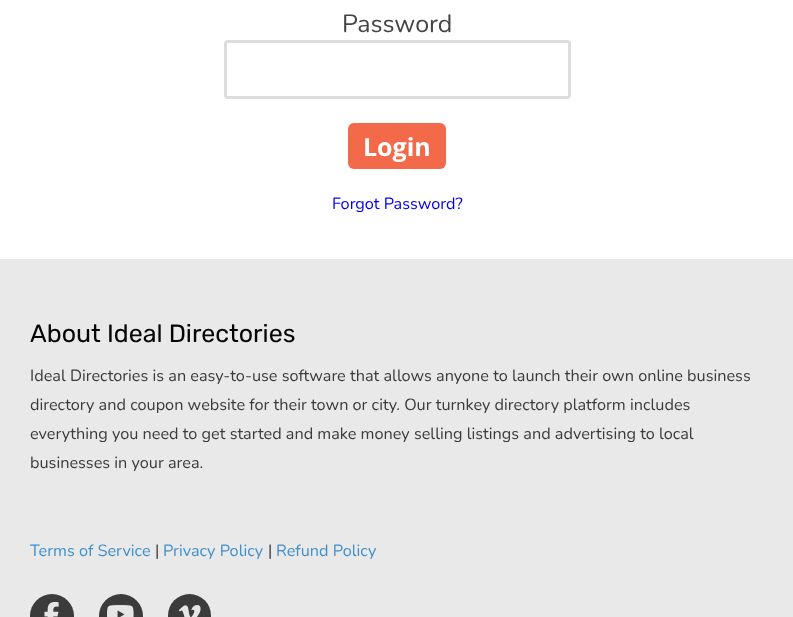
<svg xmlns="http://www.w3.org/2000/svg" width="793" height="617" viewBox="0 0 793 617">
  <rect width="100%" height="100%" fill="#fff"/>
  <rect x="225.5" y="41.5" width="344" height="56" rx="2.5" fill="none" stroke="#ddd" stroke-width="3"/>
  <rect x="348" y="123" width="98" height="46" rx="6" fill="#f36a4a"/>
  <path d="M0 259h793v358H0z" fill="#e9e9e9"/>
  <circle cx="52" cy="616" r="22" fill="#3b3b3b"/>
  <image x="44" y="601" width="15" height="16" href="img/1.png"/>
  <circle cx="121" cy="616" r="22" fill="#3b3b3b"/>
  <image x="107" y="605" width="27" height="12" href="img/2.png"/>
  <rect x="168" y="594" width="43" height="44" rx="21.5" fill="#3b3b3b"/>
  <image x="178" y="605" width="23" height="12" href="img/3.png"/>
  <text x="342" y="32" font-family="Nunito" font-size="25" fill="#444">Password</text>
  <text x="363" y="156" font-family="Open Sans" font-size="25" font-weight="bold" fill="#fff">Login</text>
  <text x="332" y="209" font-family="Nunito" font-size="16.25" fill="#00e">Forgot Password?</text>
  <text x="30" y="342" font-family="Rubik" font-size="25" fill="#050505">About Ideal Directories</text>
  <g font-family="Nunito" font-size="16.25" fill="#3b3b3b">
    <text x="30" y="381">Ideal Directories is an easy-to-use software that allows anyone to launch their own online business</text>
    <text x="30" y="410">directory and coupon website for their town or city. Our turnkey directory platform includes</text>
    <text x="30" y="439">everything you need to get started and make money selling listings and advertising to local</text>
    <text x="30" y="468">businesses in your area.</text>
  </g>
  <text x="30" y="556" font-family="Nunito" font-size="16.25" fill="#4090cd">Terms of Service</text>
  <text x="155" y="556" font-family="Nunito" font-size="16.25" fill="#3b3b3b">|</text>
  <text x="163" y="556" font-family="Nunito" font-size="16.25" fill="#4090cd">Privacy Policy</text>
  <text x="268" y="556" font-family="Nunito" font-size="16.25" fill="#3b3b3b">|</text>
  <text x="276" y="556" font-family="Nunito" font-size="16.25" fill="#4090cd">Refund Policy</text>
</svg>
